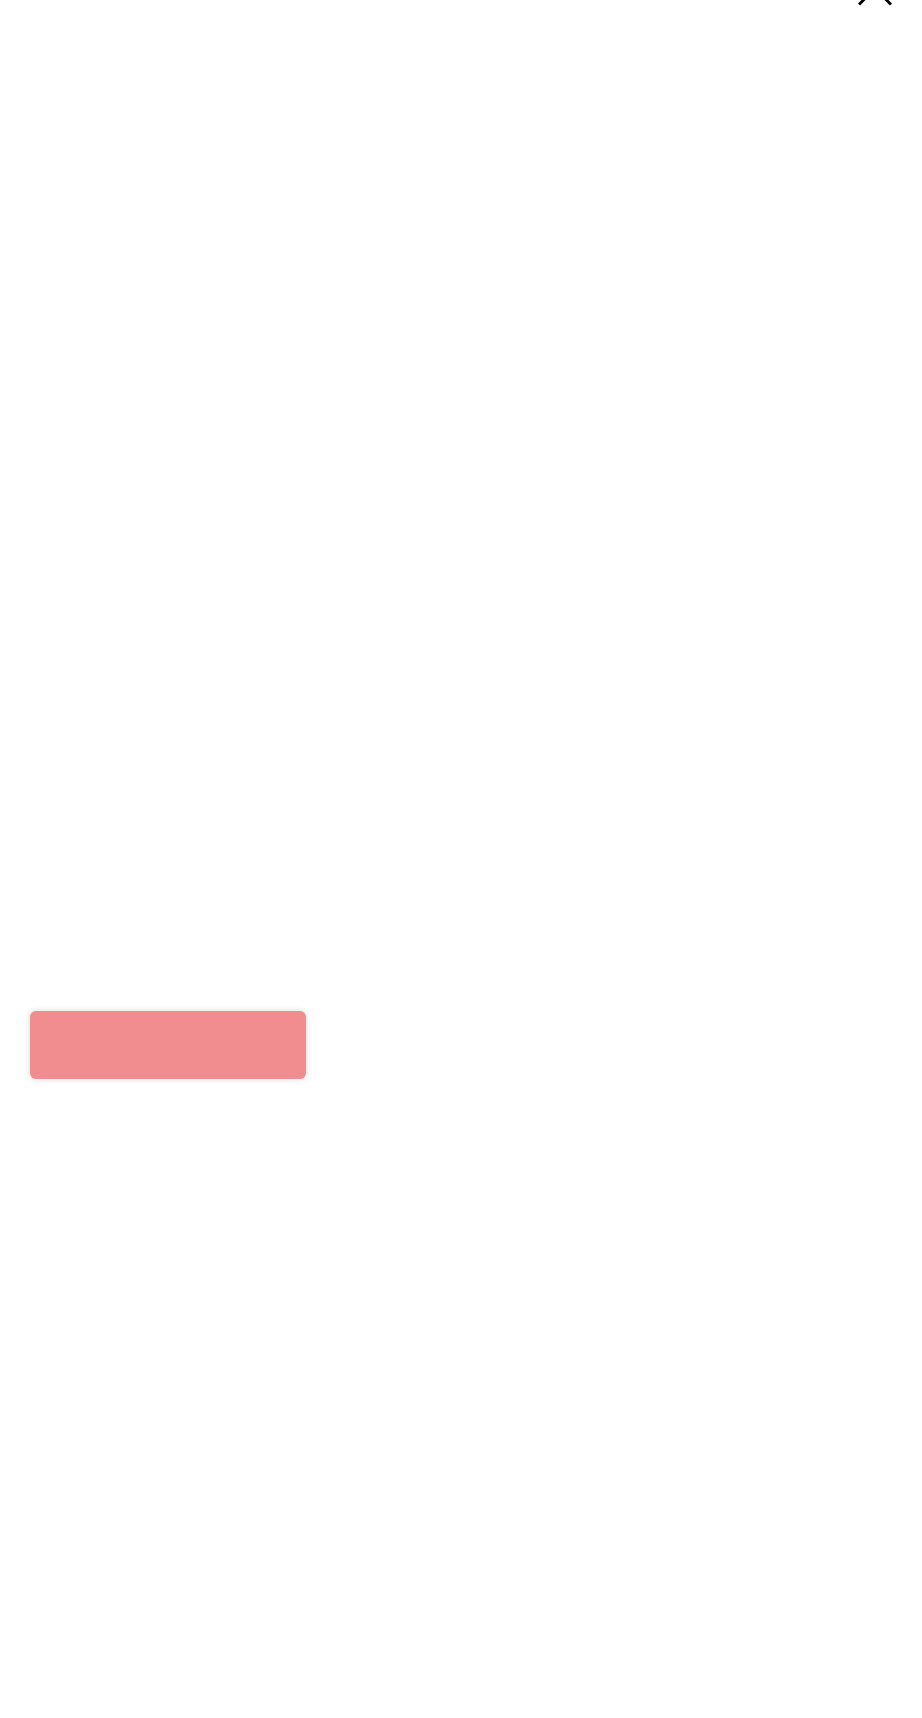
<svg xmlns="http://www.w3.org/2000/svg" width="922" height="1718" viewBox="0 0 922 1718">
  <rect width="100%" height="100%" fill="#fff"/>
  <path d="M858-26.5L860-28.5L892 3.5L890 5.5ZM890-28.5L892-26.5L860 5.5L858 3.5Z" fill="#000" fill-rule="evenodd"/>
  <rect x="30" y="1011" width="276" height="68" rx="6" fill="#8080804d" filter="blur(3px)"/>
  <rect x="30" y="1011" width="276" height="68" rx="6" fill="#f28d8f"/>
</svg>
